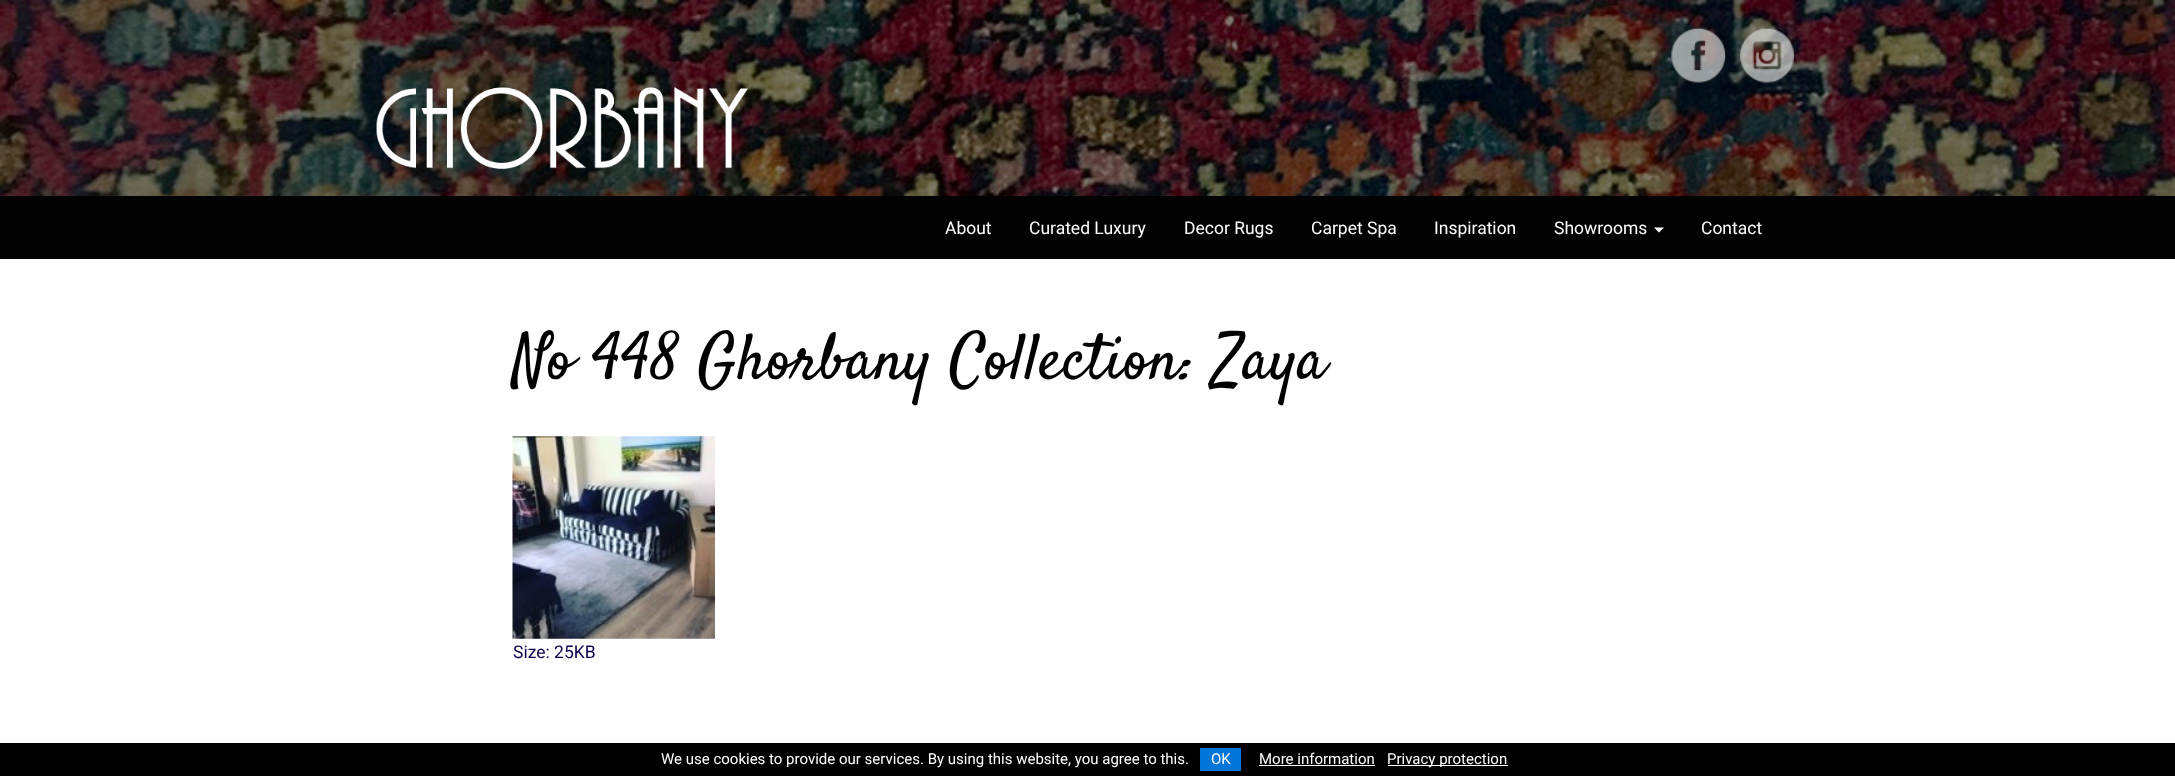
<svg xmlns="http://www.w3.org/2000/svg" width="2175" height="776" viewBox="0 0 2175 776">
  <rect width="100%" height="100%" fill="#fff"/>
  <image x="0" y="0" width="2175" height="196" href="img/1.png"/>
  <image x="1671" y="27" width="55" height="56" href="img/2.png"/>
  <image x="1739" y="27" width="56" height="56" href="img/3.png"/>
  <image x="376" y="86" width="372" height="83" href="img/4.png"/>
  <path d="M0 196h2175v63H0z" fill="#020202"/>
  <path d="M1654 227.5H1664L1659 232.5Z" fill="#fff"/>
  <image x="512" y="436" width="203" height="203" href="img/5.png"/>
  <path d="M0 743h2175v33H0z" fill="#000"/>
  <path d="M1200 748h41v23H1200z" fill="#0275d8"/>
  <path d="M1259 765h116v1H1259z" fill="#fff"/>
  <path d="M1388 765h120v1H1388z" fill="#fff"/>
  <g font-family="Roboto" font-size="17.5" fill="#fff">
    <text x="945" y="234">About</text>
    <text x="1029" y="234">Curated Luxury</text>
    <text x="1184" y="234">Decor Rugs</text>
    <text x="1311" y="234">Carpet Spa</text>
    <text x="1434" y="234">Inspiration</text>
    <text x="1554" y="234">Showrooms</text>
    <text x="1701" y="234">Contact</text>
  </g>
  <text x="513" y="378" font-family="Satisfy" font-size="65" fill="#000">No 448 Ghorbany Collection: Zaya</text>
  <text x="513" y="658" font-family="Roboto" font-size="17.5" fill="#0d004c">Size: 25KB</text>
  <g font-family="Roboto" font-size="15" fill="#fff">
    <text x="661" y="764">We use cookies to provide our services. By using this website, you agree to this.</text>
    <text x="1211" y="764">OK</text>
    <text x="1259" y="764">More information</text>
    <text x="1387" y="764">Privacy protection</text>
  </g>
</svg>
